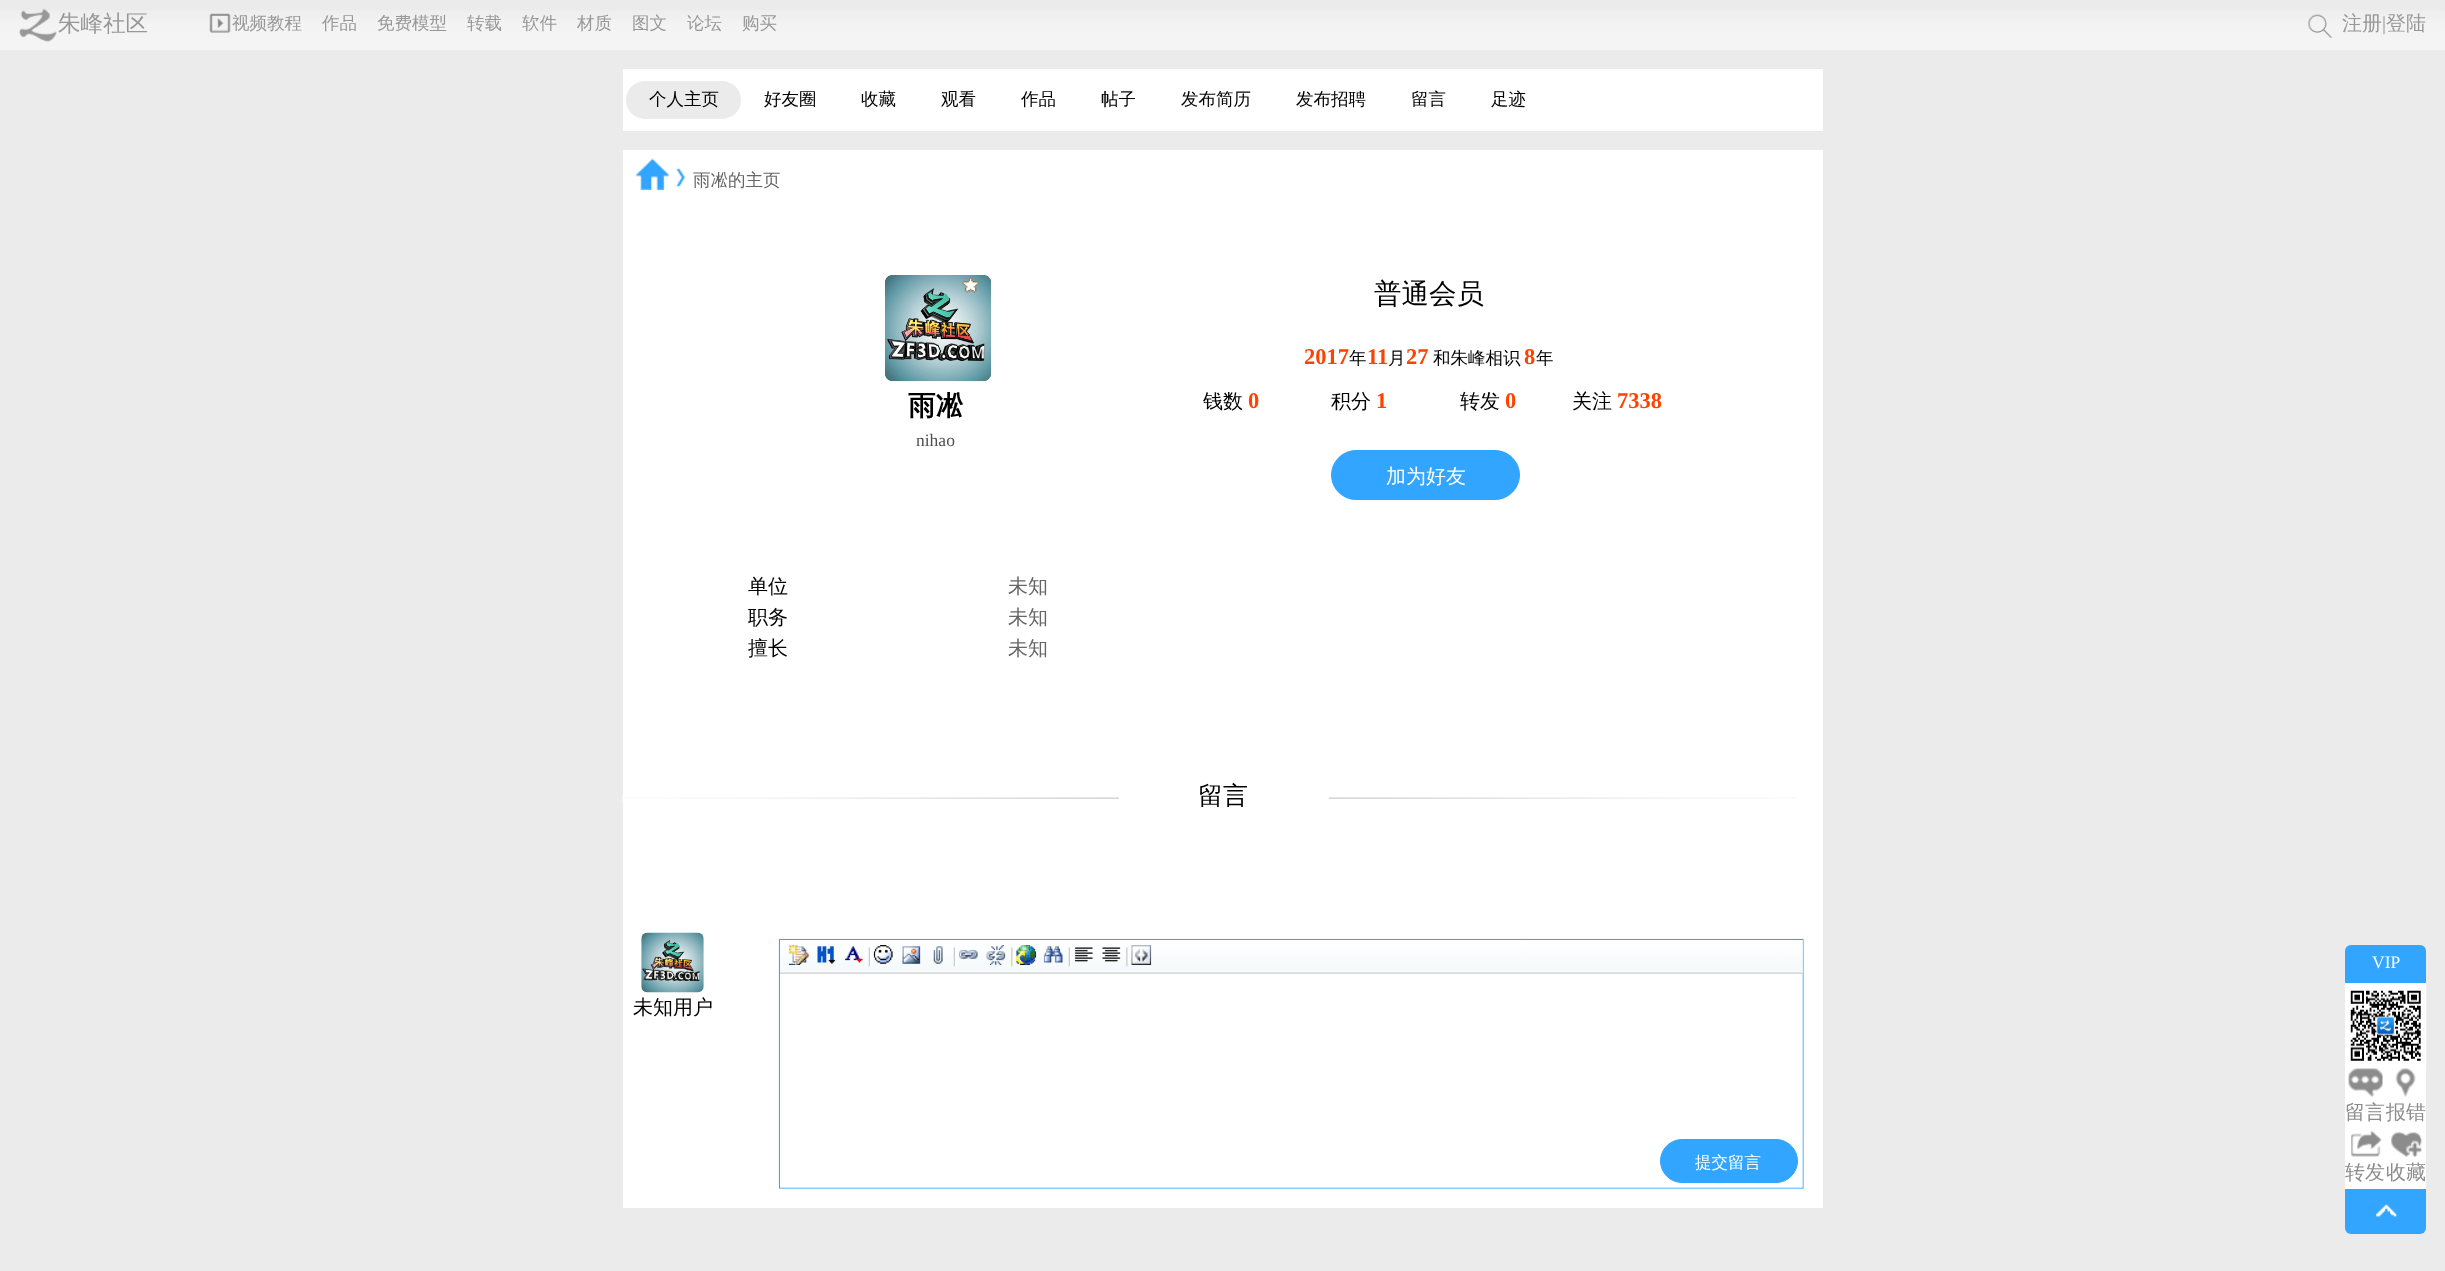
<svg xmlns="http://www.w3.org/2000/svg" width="2445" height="1271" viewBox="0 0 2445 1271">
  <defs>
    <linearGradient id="g1" gradientUnits="userSpaceOnUse" x1="1223" y1="0" x2="1223" y2="50"><stop offset="0" stop-color="#eaeaea"/><stop offset="0.5" stop-color="#f3f3f3"/><stop offset="1" stop-color="#f5f5f5"/></linearGradient>
  </defs>
  <rect width="100%" height="100%" fill="#ebebeb"/>
  <path d="M0 10h2445v40H0z" fill="url(#g1)"/>
  <image x="19" y="8" width="38" height="34" href="img/1.png"/>
  <image x="209" y="13" width="22" height="20" href="img/2.png"/>
  <image x="2308" y="14" width="24" height="24" href="img/3.png"/>
  <path d="M623 69h1200v62H623z" fill="#fff"/>
  <rect x="626" y="81" width="115" height="38" rx="19" fill="#ebebeb"/>
  <path d="M623 150h1200v1058H623z" fill="#fff"/>
  <image x="636" y="158" width="33" height="32" href="img/4.png"/>
  <image x="676" y="168" width="9" height="19" href="img/5.png"/>
  <image x="885" y="275" width="107" height="107" href="img/6.png"/>
  <image x="962" y="277" width="17" height="16" href="img/7.png"/>
  <rect x="1331.5" y="450.5" width="188" height="49" rx="24.5" fill="#31a5ff" stroke="#31a5ff"/>
  <image x="622" y="795" width="1174" height="8" href="img/8.png"/>
  <image x="641" y="932" width="63" height="61" href="img/9.png"/>
  <image x="778" y="938" width="1026" height="251" href="img/10.png"/>
  <rect x="1660.5" y="1139.5" width="137" height="43" rx="21.5" fill="#31a5ff" stroke="#31a5ff"/>
  <rect x="2345" y="945" width="81" height="289" rx="6" fill="#31a5ff"/>
  <path d="M2345 983h81v206H2345z" fill="#fff"/>
  <image x="2350" y="985" width="77" height="81" href="img/11.png"/>
  <image x="2348" y="1068" width="35" height="29" href="img/12.png"/>
  <image x="2395" y="1068" width="21" height="29" href="img/13.png"/>
  <image x="2351" y="1130" width="31" height="27" href="img/14.png"/>
  <image x="2391" y="1131" width="31" height="26" href="img/15.png"/>
  <image x="2376" y="1204" width="21" height="13" href="img/16.png"/>
  <text x="58" y="31" font-family="WenQuanYi Zen Hei" font-size="22.5" font-weight="500" fill="#979797">朱峰社区</text>
  <g font-family="WenQuanYi Zen Hei" font-size="17.5" font-weight="500" fill="#979797">
    <text x="232" y="29">视频教程</text>
    <text x="322" y="29">作品</text>
    <text x="377" y="29">免费模型</text>
    <text x="467" y="29">转载</text>
    <text x="522" y="29">软件</text>
    <text x="577" y="29">材质</text>
    <text x="632" y="29">图文</text>
    <text x="687" y="29">论坛</text>
    <text x="742" y="29">购买</text>
  </g>
  <text x="2342" y="30" font-family="WenQuanYi Zen Hei" font-size="20" font-weight="500" fill="#979797">注册</text>
  <text x="2382" y="30" font-family="Liberation Serif" font-size="20" fill="#979797">|</text>
  <text x="2386" y="30" font-family="WenQuanYi Zen Hei" font-size="20" font-weight="500" fill="#979797">登陆</text>
  <g font-family="WenQuanYi Zen Hei" font-size="17.5" font-weight="500" fill="#000">
    <text x="649" y="105">个人主页</text>
    <text x="764" y="105">好友圈</text>
    <text x="861" y="105">收藏</text>
    <text x="941" y="105">观看</text>
    <text x="1021" y="105">作品</text>
    <text x="1101" y="105">帖子</text>
    <text x="1181" y="105">发布简历</text>
    <text x="1296" y="105">发布招聘</text>
    <text x="1411" y="105">留言</text>
    <text x="1491" y="105">足迹</text>
  </g>
  <text x="693" y="186" font-family="WenQuanYi Zen Hei" font-size="17.5" font-weight="500" fill="#666">雨凇的主页</text>
  <text x="1374" y="303" font-family="WenQuanYi Zen Hei" font-size="27.5" font-weight="500" fill="#000">普通会员</text>
  <text x="1304" y="364" font-family="Liberation Serif" font-size="22.5" font-weight="bold" fill="#ff4200">2017</text>
  <text x="1349" y="364" font-family="WenQuanYi Zen Hei" font-size="17.5" font-weight="500" fill="#000">年</text>
  <text x="1367" y="364" font-family="Liberation Serif" font-size="22.5" font-weight="bold" fill="#ff4200">11</text>
  <text x="1388" y="364" font-family="WenQuanYi Zen Hei" font-size="17.5" font-weight="500" fill="#000">月</text>
  <text x="1406" y="364" font-family="Liberation Serif" font-size="22.5" font-weight="bold" fill="#ff4200">27</text>
  <text x="1433" y="364" font-family="WenQuanYi Zen Hei" font-size="17.5" font-weight="500" fill="#000">和朱峰相识</text>
  <text x="1524" y="364" font-family="Liberation Serif" font-size="22.5" font-weight="bold" fill="#ff4200">8</text>
  <text x="1536" y="364" font-family="WenQuanYi Zen Hei" font-size="17.5" font-weight="500" fill="#000">年</text>
  <text x="908" y="415" font-family="WenQuanYi Zen Hei" font-size="27.5" font-weight="bold" fill="#000">雨凇</text>
  <text x="1203" y="408" font-family="WenQuanYi Zen Hei" font-size="20" font-weight="500" fill="#000">钱数</text>
  <text x="1248" y="408" font-family="Liberation Serif" font-size="22.5" font-weight="bold" fill="#ff4200">0</text>
  <text x="1331" y="408" font-family="WenQuanYi Zen Hei" font-size="20" font-weight="500" fill="#000">积分</text>
  <text x="1376" y="408" font-family="Liberation Serif" font-size="22.5" font-weight="bold" fill="#ff4200">1</text>
  <text x="1460" y="408" font-family="WenQuanYi Zen Hei" font-size="20" font-weight="500" fill="#000">转发</text>
  <text x="1505" y="408" font-family="Liberation Serif" font-size="22.5" font-weight="bold" fill="#ff4200">0</text>
  <text x="1572" y="408" font-family="WenQuanYi Zen Hei" font-size="20" font-weight="500" fill="#000">关注</text>
  <text x="1617" y="408" font-family="Liberation Serif" font-size="22.5" font-weight="bold" fill="#ff4200">7338</text>
  <text x="916" y="446" font-family="Liberation Serif" font-size="17.5" fill="#505050">nihao</text>
  <text x="1386" y="483" font-family="WenQuanYi Zen Hei" font-size="20" font-weight="500" fill="#fff">加为好友</text>
  <text x="748" y="593" font-family="WenQuanYi Zen Hei" font-size="20" font-weight="500" fill="#000">单位</text>
  <text x="1008" y="593" font-family="WenQuanYi Zen Hei" font-size="20" font-weight="500" fill="#666">未知</text>
  <text x="748" y="624" font-family="WenQuanYi Zen Hei" font-size="20" font-weight="500" fill="#000">职务</text>
  <text x="1008" y="624" font-family="WenQuanYi Zen Hei" font-size="20" font-weight="500" fill="#666">未知</text>
  <text x="748" y="655" font-family="WenQuanYi Zen Hei" font-size="20" font-weight="500" fill="#000">擅长</text>
  <text x="1008" y="655" font-family="WenQuanYi Zen Hei" font-size="20" font-weight="500" fill="#666">未知</text>
  <text x="1198" y="804" font-family="WenQuanYi Zen Hei" font-size="25" font-weight="500" fill="#000">留言</text>
  <text x="633" y="1014" font-family="WenQuanYi Zen Hei" font-size="20" font-weight="500" fill="#000">未知用户</text>
  <text x="1695" y="1168" font-family="WenQuanYi Zen Hei" font-size="16.5" font-weight="500" fill="#fff">提交留言</text>
  <text x="2372" y="968" font-family="Liberation Serif" font-size="17.5" fill="#fff">VIP</text>
  <g font-family="WenQuanYi Zen Hei" font-size="20" font-weight="500" fill="#8c8c8c">
    <text x="2345" y="1119">留言</text>
    <text x="2386" y="1119">报错</text>
    <text x="2345" y="1179">转发</text>
    <text x="2386" y="1179">收藏</text>
  </g>
</svg>
